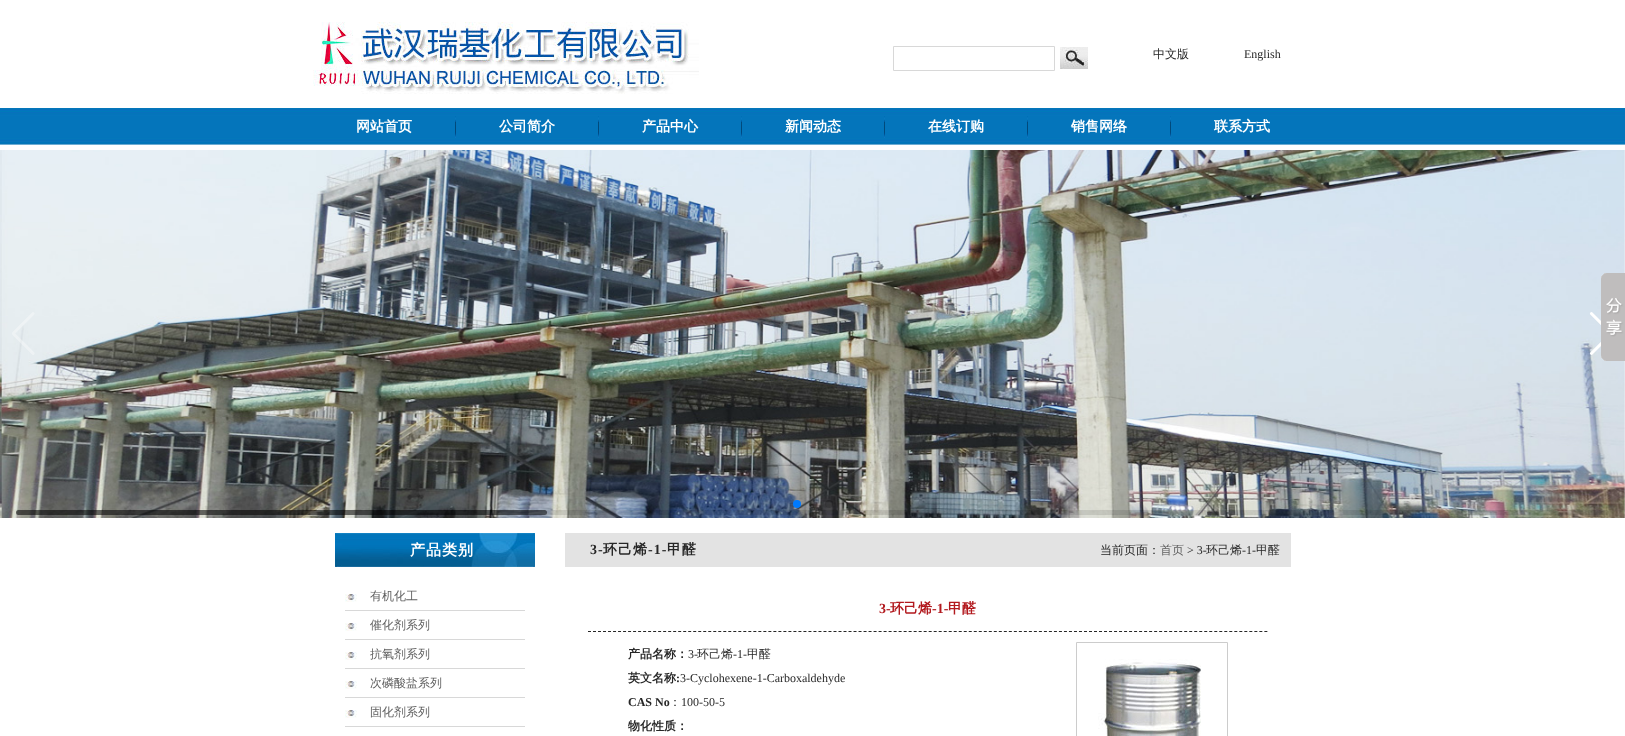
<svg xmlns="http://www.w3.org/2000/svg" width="1625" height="736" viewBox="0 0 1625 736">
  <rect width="100%" height="100%" fill="#fff"/>
  <image x="313" y="22" width="386" height="72" href="img/1.png"/>
  <path d="M893.5 46.5h161v24H893.5z" fill="none" stroke="#d8d8d8"/>
  <image x="1060" y="47" width="28" height="22" href="img/2.png"/>
  <image x="0" y="108" width="1625" height="37" href="img/3.png"/>
  <image x="455" y="116" width="1" height="22" href="img/4.png"/>
  <image x="598" y="116" width="1" height="22" href="img/4.png"/>
  <image x="741" y="116" width="1" height="22" href="img/4.png"/>
  <image x="884" y="116" width="1" height="22" href="img/4.png"/>
  <image x="1027" y="116" width="1" height="22" href="img/4.png"/>
  <image x="1170" y="116" width="1" height="22" href="img/4.png"/>
  <image x="0" y="150" width="1625" height="368" href="img/5.png"/>
  <image x="12" y="312" width="23" height="43" href="img/6.png"/>
  <image x="1589" y="312" width="12" height="43" href="img/7.png"/>
  <circle cx="797" cy="504" r="4" fill="#007aff"/>
  <circle cx="813" cy="504" r="4" fill="#00000033"/>
  <circle cx="829" cy="504" r="4" fill="#00000033"/>
  <rect x="16" y="510" width="1593" height="5" rx="2.5" fill="#0000001a"/>
  <rect x="16" y="510" width="531" height="5" rx="2.5" fill="#00000080"/>
  <image x="1601" y="273" width="24" height="88" href="img/8.png"/>
  <image x="335" y="533" width="200" height="34" href="img/9.png"/>
  <image x="345" y="594" width="12" height="8" href="img/10.png"/>
  <path d="M345 610h180v1H345z" fill="#d8d8d8"/>
  <image x="345" y="623" width="12" height="8" href="img/10.png"/>
  <path d="M345 639h180v1H345z" fill="#d8d8d8"/>
  <image x="345" y="652" width="12" height="8" href="img/10.png"/>
  <path d="M345 668h180v1H345z" fill="#d8d8d8"/>
  <image x="345" y="681" width="12" height="8" href="img/10.png"/>
  <path d="M345 697h180v1H345z" fill="#d8d8d8"/>
  <image x="345" y="710" width="12" height="8" href="img/10.png"/>
  <path d="M345 726h180v1H345z" fill="#d8d8d8"/>
  <path d="M565 533h726v34H565z" fill="#e3e3e3"/>
  <path d="M588 631.5H1268" fill="none" stroke="#272727" stroke-dasharray="3 2.01"/>
  <path d="M1076.5 642.5h151v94H1076.5z" fill="none" stroke="#ccc"/>
  <image x="1098" y="659" width="103" height="77" href="img/11.png"/>
  <text x="1153" y="58" font-family="WenQuanYi Zen Hei" font-size="12" font-weight="500" fill="#272727">中文版</text>
  <text x="1244" y="58" font-family="Liberation Serif" font-size="12" fill="#272727">English</text>
  <g font-family="WenQuanYi Zen Hei" font-size="14" font-weight="bold" fill="#fff">
    <text x="356" y="131">网站首页</text>
    <text x="499" y="131">公司简介</text>
    <text x="642" y="131">产品中心</text>
    <text x="785" y="131">新闻动态</text>
    <text x="928" y="131">在线订购</text>
    <text x="1071" y="131">销售网络</text>
    <text x="1214" y="131">联系方式</text>
  </g>
  <text x="410" y="555" font-family="WenQuanYi Zen Hei" font-size="15" font-weight="bold" letter-spacing="1" fill="#fff">产品类别</text>
  <g font-family="WenQuanYi Zen Hei" font-size="12" font-weight="500" fill="#616161">
    <text x="370" y="600">有机化工</text>
    <text x="370" y="629">催化剂系列</text>
    <text x="370" y="658">抗氧剂系列</text>
    <text x="370" y="687">次磷酸盐系列</text>
    <text x="370" y="716">固化剂系列</text>
  </g>
  <text x="590" y="554" font-family="Liberation Serif" font-size="14" font-weight="bold" letter-spacing="1" fill="#272727">3-</text>
  <text x="603" y="554" font-family="WenQuanYi Zen Hei" font-size="14" font-weight="bold" letter-spacing="1" fill="#272727">环己烯</text>
  <text x="648" y="554" font-family="Liberation Serif" font-size="14" font-weight="bold" letter-spacing="1" fill="#272727">-1-</text>
  <text x="667" y="554" font-family="WenQuanYi Zen Hei" font-size="14" font-weight="bold" letter-spacing="1" fill="#272727">甲醛</text>
  <text x="1100" y="554" font-family="WenQuanYi Zen Hei" font-size="12" font-weight="500" fill="#272727">当前页面：</text>
  <text x="1160" y="554" font-family="WenQuanYi Zen Hei" font-size="12" font-weight="500" fill="#616161">首页</text>
  <text x="1187" y="554" font-family="Liberation Serif" font-size="12" fill="#272727">&gt; 3-</text>
  <text x="1206" y="554" font-family="WenQuanYi Zen Hei" font-size="12" font-weight="500" fill="#272727">环己烯</text>
  <text x="1242" y="554" font-family="Liberation Serif" font-size="12" fill="#272727">-1-</text>
  <text x="1256" y="554" font-family="WenQuanYi Zen Hei" font-size="12" font-weight="500" fill="#272727">甲醛</text>
  <text x="879" y="613" font-family="Liberation Serif" font-size="14" font-weight="bold" fill="#b2191e">3-</text>
  <text x="890" y="613" font-family="WenQuanYi Zen Hei" font-size="14" font-weight="bold" fill="#b2191e">环己烯</text>
  <text x="932" y="613" font-family="Liberation Serif" font-size="14" font-weight="bold" fill="#b2191e">-1-</text>
  <text x="948" y="613" font-family="WenQuanYi Zen Hei" font-size="14" font-weight="bold" fill="#b2191e">甲醛</text>
  <text x="628" y="658" font-family="WenQuanYi Zen Hei" font-size="12" font-weight="bold" fill="#272727">产品名称：</text>
  <text x="688" y="658" font-family="Liberation Serif" font-size="12" fill="#272727">3-</text>
  <text x="697" y="658" font-family="WenQuanYi Zen Hei" font-size="12" font-weight="500" fill="#272727">环己烯</text>
  <text x="733" y="658" font-family="Liberation Serif" font-size="12" fill="#272727">-1-</text>
  <text x="747" y="658" font-family="WenQuanYi Zen Hei" font-size="12" font-weight="500" fill="#272727">甲醛</text>
  <text x="628" y="682" font-family="WenQuanYi Zen Hei" font-size="12" font-weight="bold" fill="#272727">英文名称</text>
  <text x="676" y="682" font-family="Liberation Serif" font-size="12" font-weight="bold" fill="#272727">:</text>
  <text x="680" y="682" font-family="Liberation Serif" font-size="12" fill="#272727">3-Cyclohexene-1-Carboxaldehyde</text>
  <text x="628" y="706" font-family="Liberation Serif" font-size="12" font-weight="bold" fill="#272727">CAS No</text>
  <text x="669" y="706" font-family="WenQuanYi Zen Hei" font-size="12" font-weight="500" fill="#272727">：</text>
  <text x="681" y="706" font-family="Liberation Serif" font-size="12" fill="#272727">100-50-5</text>
  <text x="628" y="730" font-family="WenQuanYi Zen Hei" font-size="12" font-weight="bold" fill="#272727">物化性质：</text>
</svg>
